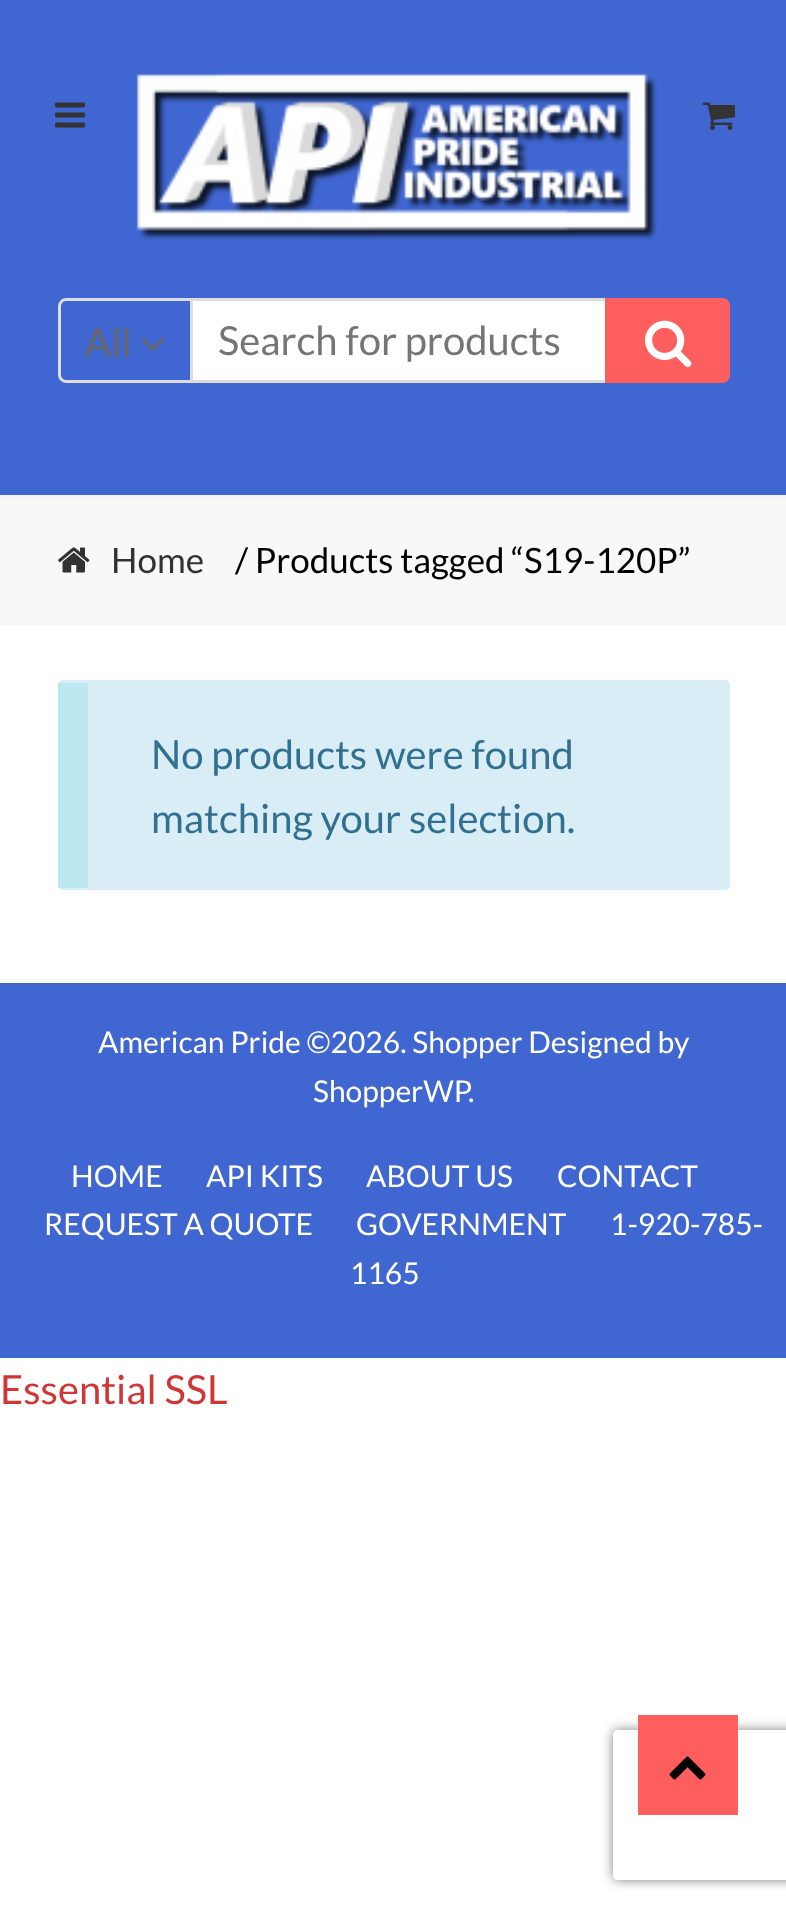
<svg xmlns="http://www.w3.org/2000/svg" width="786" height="1914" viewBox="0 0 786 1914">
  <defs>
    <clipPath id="clip1"><path d="M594 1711H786V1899H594ZM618 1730H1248C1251 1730 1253 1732 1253 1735V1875C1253 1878 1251 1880 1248 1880H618C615 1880 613 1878 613 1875V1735C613 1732 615 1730 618 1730Z" clip-rule="evenodd"/></clipPath>
  </defs>
  <rect width="100%" height="100%" fill="#fff"/>
  <path d="M0 0h786v495H0z" fill="#4067d1"/>
  <path d="M0 495h786v3H0z" fill="#f5f5f5"/>
  <image x="55" y="102" width="30" height="26" href="img/1.png"/>
  <image x="136" y="72" width="521" height="169" href="img/2.png"/>
  <image x="702" y="102" width="33" height="28" href="img/3.png"/>
  <path d="M66 299.5H191.5V381.5H66C62.5 381.5 59.5 378.5 59.5 375V306C59.5 302.5 62.5 299.5 66 299.5Z" fill="none" stroke="#ddd" stroke-width="3"/>
  <image x="141" y="337" width="23" height="14" href="img/4.png"/>
  <path d="M193 301h412v79H193z" fill="#fff"/>
  <path d="M193 298h412v3H193z" fill="#ddd"/>
  <path d="M193 380h412v3H193z" fill="#ddd"/>
  <path d="M605 298H722C726.5 298 730 301.5 730 306V375C730 379.5 726.5 383 722 383H605Z" fill="#ff5e5e"/>
  <image x="645" y="320" width="47" height="48" href="img/5.png"/>
  <path d="M0 498h786v127H0z" fill="#f8f8f8"/>
  <image x="58" y="547" width="32" height="26" href="img/6.png"/>
  <rect x="58" y="680" width="672" height="210" rx="5" fill="#d9edf7"/>
  <path d="M58 683h30v205H58z" fill="#bce8f1"/>
  <path d="M0 983h786v375H0z" fill="#4067d1"/>
  <g clip-path="url(#clip1)">
    <rect x="613" y="1730" width="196" height="150" rx="5" fill="#808080" filter="blur(6px)"/>
  </g>
  <path d="M638 1715h100v100H638z" fill="#ff5e5e"/>
  <image x="669" y="1756" width="37" height="24" href="img/7.png"/>
  <text x="84" y="357" font-family="Lato" font-size="40" fill="#666">All</text>
  <text x="218" y="355" font-family="Lato" font-size="40" fill="#757575">Search for products</text>
  <text x="111" y="573" font-family="Lato" font-size="35" fill="#323232">Home</text>
  <text x="235" y="573" font-family="Lato" font-size="35" fill="#000">/ Products tagged “S19-120P”</text>
  <g font-family="Lato" font-size="40" fill="#31708f">
    <text x="151" y="769">No products were found</text>
    <text x="151" y="833">matching your selection.</text>
  </g>
  <g font-family="Lato" font-size="30" fill="#fff">
    <text x="98" y="1053">American Pride ©2026. Shopper Designed by</text>
    <text x="313" y="1102">ShopperWP</text>
    <text x="468" y="1102">.</text>
    <text x="71" y="1187">HOME</text>
    <text x="206" y="1187">API KITS</text>
    <text x="366" y="1187">ABOUT US</text>
    <text x="557" y="1187">CONTACT</text>
    <text x="44" y="1235">REQUEST A QUOTE</text>
    <text x="356" y="1235">GOVERNMENT</text>
    <text x="610" y="1235">1-920-785-</text>
    <text x="350" y="1284">1165</text>
  </g>
  <text x="0" y="1404" font-family="Lato" font-size="40" fill="#d13636">Essential SSL</text>
</svg>
